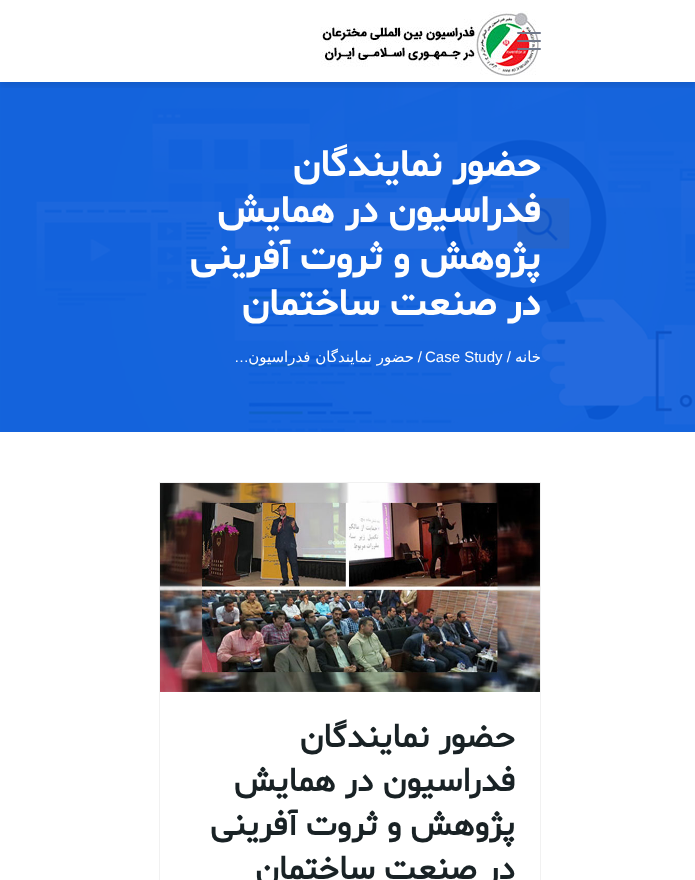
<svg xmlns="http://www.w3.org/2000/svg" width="695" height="880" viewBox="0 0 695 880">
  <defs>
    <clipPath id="clip1"><path d="M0 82h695v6H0z"/></clipPath>
  </defs>
  <rect width="100%" height="100%" fill="#fff"/>
  <path d="M0 82h695v350H0z" fill="#0c5adb"/>
  <image x="0" y="82" width="695" height="350" href="img/2.png"/>
  <g clip-path="url(#clip1)">
    <path d="M0 3h695v82H0z" fill="#0000001a" filter="blur(3.5px)"/>
  </g>
  <image x="320" y="11" width="219" height="65" href="img/1.png"/>
  <rect x="517" y="48" width="24" height="2" rx="1" fill="#70798b"/>
  <rect x="517" y="40" width="24" height="2" rx="1" fill="#70798b"/>
  <rect x="517" y="32" width="24" height="2" rx="1" fill="#70798b"/>
  <path d="M159.5 482.5h381v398H159.5z" fill="none" stroke="#f1f1f1"/>
  <image x="160" y="483" width="380" height="209" href="img/3.png"/>
  <g font-family="'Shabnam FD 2'" font-size="38.5" font-weight="bold" direction="rtl" fill="#fefefe">
    <text x="541" y="176">حضور نمایندگان</text>
    <text x="541" y="222">فدراسیون در همایش</text>
    <text x="541" y="269">پژوهش و ثروت آفرینی</text>
    <text x="541" y="315">در صنعت ساختمان</text>
  </g>
  <text x="541" y="362" font-family="DejaVu Sans" font-size="15" direction="rtl" fill="#fefefe">خانه</text>
  <text x="425" y="362" font-family="Liberation Sans" font-size="15" fill="#fefefe">Case Study /</text>
  <text x="422" y="362" font-family="Liberation Sans" font-size="15" direction="rtl" fill="#fefefe">/</text>
  <text x="414" y="362" font-family="DejaVu Sans" font-size="15" direction="rtl" fill="#fefefe">حضور نمایندگان فدراسیون</text>
  <text x="249" y="362" font-family="Liberation Sans" font-size="15" direction="rtl" fill="#fefefe">…</text>
  <g font-family="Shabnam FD" font-size="33.5" font-weight="bold" direction="rtl" fill="#192225">
    <text x="515" y="747">حضور نمایندگان</text>
    <text x="515" y="791">فدراسیون در همایش</text>
    <text x="515" y="835">پژوهش و ثروت آفرینی</text>
    <text x="515" y="879">در صنعت ساختمان</text>
  </g>
</svg>
